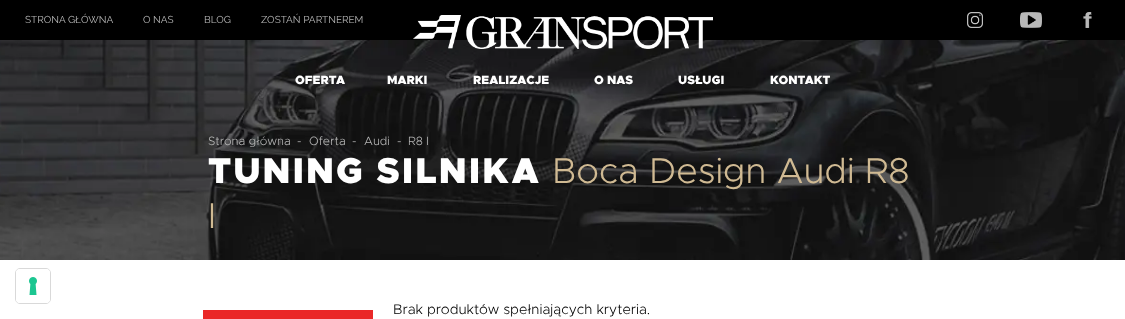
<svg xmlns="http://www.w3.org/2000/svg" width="1125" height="319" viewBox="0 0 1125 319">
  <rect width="100%" height="100%" fill="#000"/>
  <image x="967" y="12" width="16" height="16" href="img/1.png"/>
  <image x="1020" y="12" width="22" height="16" href="img/2.png"/>
  <image x="1083" y="12" width="9" height="16" href="img/3.png"/>
  <image x="0" y="40" width="1125" height="220" href="img/5.png"/>
  <image x="413" y="15" width="300" height="34" href="img/4.png"/>
  <path d="M0 260h1125v59H0z" fill="#fff"/>
  <path d="M203 310h170v9H203z" fill="#ea2727"/>
  <rect x="15.5" y="268.5" width="35" height="35" rx="4.5" fill="none" stroke="#d9d9d9"/>
  <rect x="16" y="269" width="34" height="34" rx="4" fill="#fff"/>
  <image x="29" y="277" width="8" height="18" href="img/6.png"/>
  <g font-family="Raleway" font-size="10" fill="#b7b7b7">
    <text x="25" y="23">STRONA GŁÓWNA</text>
    <text x="143" y="23">O NAS</text>
    <text x="204" y="23">BLOG</text>
    <text x="261" y="23">ZOSTAŃ PARTNEREM</text>
  </g>
  <g font-family="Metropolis" font-size="12" font-weight="900" fill="#fff">
    <text x="295" y="84">OFERTA</text>
    <text x="387" y="84">MARKI</text>
    <text x="473" y="84">REALIZACJE</text>
    <text x="594" y="84">O NAS</text>
    <text x="678" y="84">USŁUGI</text>
    <text x="770" y="84">KONTAKT</text>
  </g>
  <g font-family="Metropolis" font-size="12" font-weight="300" fill="#b7b7b7">
    <text x="208" y="145">Strona główna</text>
    <text x="297" y="145">-</text>
    <text x="309" y="145">Oferta</text>
    <text x="352" y="145">-</text>
    <text x="364" y="145">Audi</text>
    <text x="397" y="145">-</text>
    <text x="408" y="145">R8 I</text>
  </g>
  <text x="208" y="183" font-family="Metropolis" font-size="36" font-weight="900" letter-spacing="2" fill="#fff">TUNING SILNIKA</text>
  <g font-family="Metropolis" font-size="36" font-weight="300" fill="#d0ba93">
    <text x="552" y="183">Boca Design Audi R8</text>
    <text x="208" y="228">I</text>
  </g>
  <text x="393" y="314" font-family="Metropolis" font-size="14" font-weight="300" fill="#000">Brak produktów spełniających kryteria.</text>
</svg>
